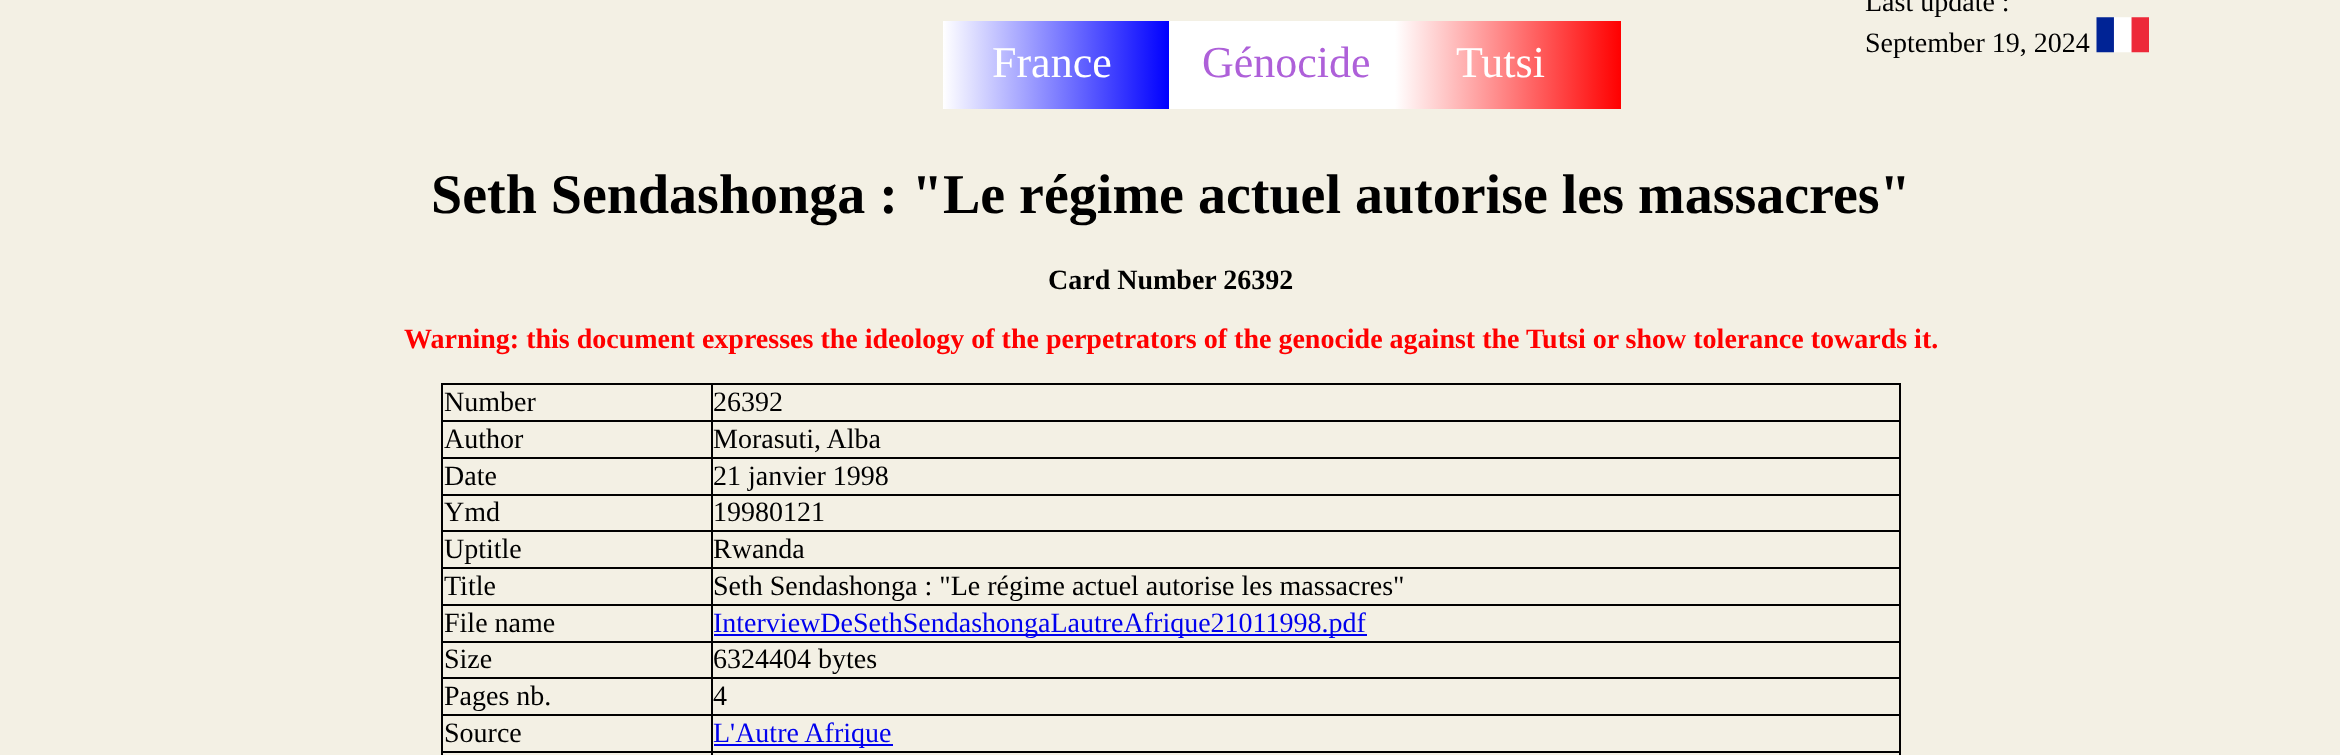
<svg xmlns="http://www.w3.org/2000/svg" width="2340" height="755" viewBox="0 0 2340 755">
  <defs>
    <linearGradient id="g1" gradientUnits="userSpaceOnUse" x1="943" y1="21" x2="1169" y2="21"><stop offset="0" stop-color="#fff"/><stop offset="1" stop-color="#00f"/></linearGradient>
    <linearGradient id="g2" gradientUnits="userSpaceOnUse" x1="1395" y1="21" x2="1621" y2="21"><stop offset="0" stop-color="#fff"/><stop offset="1" stop-color="#f00"/></linearGradient>
  </defs>
  <rect width="100%" height="100%" fill="#f3f0e4"/>
  <image x="2096" y="17" width="53" height="36" href="img/1.png"/>
  <path d="M943 21h226v88H943z" fill="url(#g1)"/>
  <path d="M1169 21h226v88H1169z" fill="#fff"/>
  <path d="M1395 21h226v88H1395z" fill="url(#g2)"/>
  <path d="M442 384h1458v37H442z" fill="none" stroke="#000" stroke-width="2"/>
  <path d="M711 385h2v35H711z" fill="#000"/>
  <path d="M1899 422h2v73H1899z" fill="#000"/>
  <path d="M441 457h1460v2H441z" fill="#000"/>
  <path d="M441 422h2v37H441z" fill="#000"/>
  <path d="M711 422h2v35H711z" fill="#000"/>
  <path d="M441 494h1460v2H441z" fill="#000"/>
  <path d="M441 459h2v36H441z" fill="#000"/>
  <path d="M711 459h2v35H711z" fill="#000"/>
  <path d="M1899 495h2v147H1899z" fill="#000"/>
  <path d="M441 530h1460v2H441z" fill="#000"/>
  <path d="M441 495h2v37H441z" fill="#000"/>
  <path d="M711 495h2v35H711z" fill="#000"/>
  <path d="M441 567h1460v2H441z" fill="#000"/>
  <path d="M441 532h2v37H441z" fill="#000"/>
  <path d="M711 532h2v35H711z" fill="#000"/>
  <path d="M441 604h1460v2H441z" fill="#000"/>
  <path d="M441 569h2v37H441z" fill="#000"/>
  <path d="M711 569h2v35H711z" fill="#000"/>
  <path d="M441 641h1460v2H441z" fill="#000"/>
  <path d="M441 606h2v36H441z" fill="#000"/>
  <path d="M711 606h2v35H711z" fill="#000"/>
  <path d="M714 634h653v2H714z" fill="#00e"/>
  <path d="M1899 642h2v113H1899z" fill="#000"/>
  <path d="M441 677h1460v2H441z" fill="#000"/>
  <path d="M441 642h2v37H441z" fill="#000"/>
  <path d="M711 642h2v35H711z" fill="#000"/>
  <path d="M441 714h1460v2H441z" fill="#000"/>
  <path d="M441 679h2v37H441z" fill="#000"/>
  <path d="M711 679h2v35H711z" fill="#000"/>
  <path d="M441 751h1460v2H441z" fill="#000"/>
  <path d="M441 716h2v39H441z" fill="#000"/>
  <path d="M711 716h2v35H711z" fill="#000"/>
  <path d="M714 744h179v2H714z" fill="#00e"/>
  <path d="M711 753h2v2H711z" fill="#000"/>
  <g font-family="Liberation Serif" font-size="28" fill="#000">
    <text x="1865" y="11">Last update :</text>
    <text x="1865" y="52">September 19, 2024</text>
  </g>
  <text x="992" y="77" font-family="Liberation Serif" font-size="44" fill="#fff">France</text>
  <text x="1202" y="77" font-family="Liberation Serif" font-size="44" fill="#ae60d9">Génocide</text>
  <text x="1456" y="77" font-family="Liberation Serif" font-size="44" fill="#fff">Tutsi</text>
  <text x="431" y="213" font-family="Liberation Serif" font-size="56" font-weight="bold" fill="#000">Seth Sendashonga : "Le régime actuel autorise les massacres"</text>
  <text x="1048" y="289" font-family="Liberation Serif" font-size="28" font-weight="bold" fill="#000">Card Number 26392</text>
  <text x="404" y="348" font-family="Liberation Serif" font-size="28" font-weight="bold" fill="#f00">Warning: this document expresses the ideology of the perpetrators of the genocide against the Tutsi or show tolerance towards it.</text>
  <g font-family="Liberation Serif" font-size="28" fill="#000">
    <text x="444" y="411">Number</text>
    <text x="713" y="411">26392</text>
    <text x="444" y="448">Author</text>
    <text x="713" y="448">Morasuti, Alba</text>
    <text x="444" y="485">Date</text>
    <text x="713" y="485">21 janvier 1998</text>
    <text x="444" y="521">Ymd</text>
    <text x="713" y="521">19980121</text>
    <text x="444" y="558">Uptitle</text>
    <text x="713" y="558">Rwanda</text>
    <text x="444" y="595">Title</text>
    <text x="713" y="595">Seth Sendashonga : "Le régime actuel autorise les massacres"</text>
    <text x="444" y="632">File name</text>
  </g>
  <text x="713" y="632" font-family="Liberation Serif" font-size="28" fill="#00e">InterviewDeSethSendashongaLautreAfrique21011998.pdf</text>
  <g font-family="Liberation Serif" font-size="28" fill="#000">
    <text x="444" y="668">Size</text>
    <text x="713" y="668">6324404 bytes</text>
    <text x="444" y="705">Pages nb.</text>
    <text x="713" y="705">4</text>
    <text x="444" y="742">Source</text>
  </g>
  <text x="713" y="742" font-family="Liberation Serif" font-size="28" fill="#00e">L'Autre Afrique</text>
</svg>
